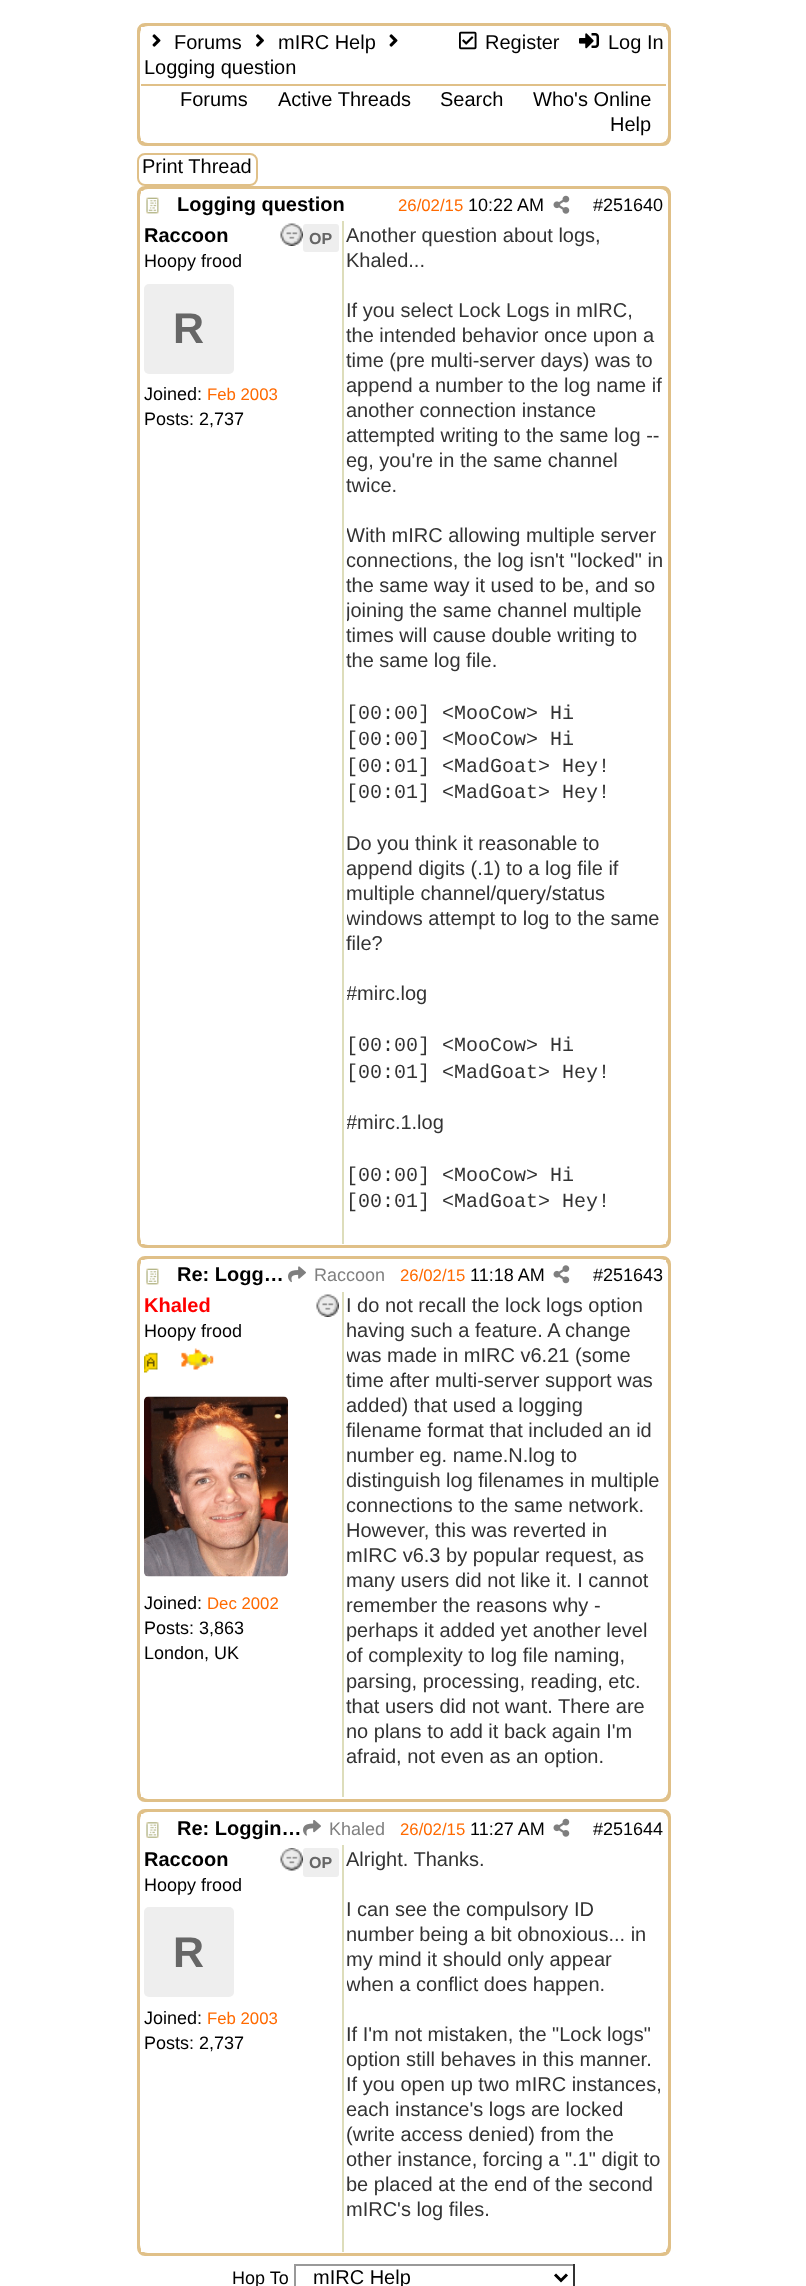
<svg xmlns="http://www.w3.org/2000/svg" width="806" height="2286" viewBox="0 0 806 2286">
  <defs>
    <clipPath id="clip1"><path d="M347 224h316v1017H347z"/></clipPath>
    <clipPath id="clip2"><path d="M347 1295h316v499H347z"/></clipPath>
    <clipPath id="clip3"><path d="M347 1848h316v401H347z"/></clipPath>
  </defs>
  <rect width="100%" height="100%" fill="#fff"/>
  <rect x="138" y="24" width="532" height="121" rx="7" fill="#e0c088" stroke="#e0c088" stroke-width="2"/>
  <rect x="141" y="27" width="526" height="115" rx="7" fill="none" stroke="#fff" stroke-width="2"/>
  <path d="M141 27h525v57H141z" fill="#fff"/>
  <image x="152" y="34" width="9" height="13" href="img/1.png"/>
  <image x="256" y="34" width="8" height="13" href="img/2.png"/>
  <image x="389" y="34" width="9" height="13" href="img/1.png"/>
  <image x="459" y="31" width="18" height="19" href="img/3.png"/>
  <image x="579" y="33" width="20" height="16" href="img/4.png"/>
  <path d="M141 86h525v55H141z" fill="#fff"/>
  <path d="M141 84h1v2H141z" fill="#e0c088"/>
  <rect x="138" y="154" width="119" height="31" rx="7" fill="none" stroke="#e0c088" stroke-width="2"/>
  <rect x="138" y="187" width="532" height="1060" rx="7" fill="#e0c088" stroke="#e0c088" stroke-width="2"/>
  <rect x="141" y="190" width="526" height="1054" rx="7" fill="none" stroke="#fff" stroke-width="2"/>
  <path d="M141 191h525v30H141z" fill="#fff"/>
  <image x="146" y="197" width="13" height="17" href="img/5.png"/>
  <image x="553" y="195" width="17" height="19" href="img/6.png"/>
  <path d="M141 221h201v1023H141z" fill="#fff"/>
  <image x="280" y="223" width="23" height="23" href="img/7.png"/>
  <rect x="303" y="224" width="36" height="28" rx="3" fill="#eee"/>
  <rect x="144" y="284" width="90" height="90" rx="5" fill="#eee"/>
  <path d="M344 221h322v1023H344z" fill="#fff"/>
  <path d="M342 221h2v1023H342z" fill="#ddb"/>
  <rect x="138" y="1257" width="532" height="544" rx="7" fill="#e0c088" stroke="#e0c088" stroke-width="2"/>
  <rect x="141" y="1260" width="526" height="538" rx="7" fill="none" stroke="#fff" stroke-width="2"/>
  <path d="M141 1260h525v32H141z" fill="#fff"/>
  <image x="146" y="1268" width="13" height="17" href="img/8.png"/>
  <image x="288" y="1266" width="18" height="17" href="img/9.png"/>
  <image x="553" y="1265" width="17" height="19" href="img/10.png"/>
  <path d="M141 1292h201v505H141z" fill="#fff"/>
  <image x="316" y="1294" width="23" height="23" href="img/11.png"/>
  <image x="144" y="1352" width="14" height="21" href="img/12.png"/>
  <image x="181" y="1348" width="33" height="22" href="img/13.png"/>
  <image x="144" y="1396" width="144" height="181" href="img/14.png"/>
  <path d="M344 1292h322v505H344z" fill="#fff"/>
  <path d="M342 1292h2v505H342z" fill="#ddb"/>
  <rect x="138" y="1810" width="532" height="445" rx="7" fill="#e0c088" stroke="#e0c088" stroke-width="2"/>
  <rect x="141" y="1813" width="526" height="439" rx="7" fill="none" stroke="#fff" stroke-width="2"/>
  <path d="M141 1814h525v31H141z" fill="#fff"/>
  <image x="146" y="1822" width="13" height="16" href="img/15.png"/>
  <image x="303" y="1820" width="18" height="16" href="img/16.png"/>
  <image x="553" y="1818" width="17" height="19" href="img/6.png"/>
  <path d="M141 1845h201v407H141z" fill="#fff"/>
  <image x="280" y="1848" width="23" height="23" href="img/17.png"/>
  <rect x="303" y="1848" width="36" height="29" rx="3" fill="#eee"/>
  <rect x="144" y="1907" width="90" height="90" rx="5" fill="#eee"/>
  <path d="M344 1845h322v407H344z" fill="#fff"/>
  <path d="M342 1845h2v407H342z" fill="#ddb"/>
  <path d="M294 2264h281v2H294z" fill="#999"/>
  <path d="M573 2264h2v22H573z" fill="#333"/>
  <path d="M294 2264h2v22H294z" fill="#999"/>
  <path d="M555 2274.5L561 2280.5L567 2274.5" fill="none" stroke="#000" stroke-width="3"/>
  <g font-family="Liberation Sans" font-size="20" fill="#000">
    <text x="174" y="49">Forums</text>
    <text x="278" y="49">mIRC Help</text>
    <text x="144" y="74">Logging question</text>
    <text x="485" y="49">Register</text>
    <text x="608" y="49">Log In</text>
    <text x="180" y="106">Forums</text>
    <text x="278" y="106">Active Threads</text>
    <text x="440" y="106">Search</text>
    <text x="533" y="106">Who's Online</text>
    <text x="610" y="131">Help</text>
    <text x="142" y="173">Print Thread</text>
  </g>
  <text x="177" y="211" font-family="Liberation Sans" font-size="20" font-weight="bold" fill="#000">Logging question</text>
  <text x="398" y="211" font-family="Liberation Sans" font-size="16.75" fill="#ff6a00">26/02/15</text>
  <g font-family="Liberation Sans" font-size="18" fill="#000">
    <text x="468" y="211">10:22 AM</text>
    <text x="593" y="211">#251640</text>
  </g>
  <text x="144" y="242" font-family="Liberation Sans" font-size="20" font-weight="bold" fill="#000">Raccoon</text>
  <text x="309" y="244" font-family="Liberation Sans" font-size="16" font-weight="bold" fill="#666">OP</text>
  <text x="144" y="267" font-family="Liberation Sans" font-size="18" fill="#000">Hoopy frood</text>
  <text x="173" y="343" font-family="Liberation Sans" font-size="43" font-weight="bold" fill="#666">R</text>
  <text x="144" y="400" font-family="Liberation Sans" font-size="18" fill="#000">Joined:</text>
  <text x="207" y="400" font-family="Liberation Sans" font-size="16.75" fill="#ff6a00">Feb 2003</text>
  <text x="144" y="425" font-family="Liberation Sans" font-size="18" fill="#000">Posts: 2,737</text>
  <g font-family="Liberation Sans" font-size="20" fill="#333">
    <text x="346" y="242">Another question about logs,</text>
    <text x="346" y="267">Khaled...</text>
    <text x="346" y="317">If you select Lock Logs in mIRC,</text>
    <text x="346" y="342">the intended behavior once upon a</text>
    <text x="346" y="367">time (pre multi-server days) was to</text>
    <text x="346" y="392">append a number to the log name if</text>
    <text x="346" y="417">another connection instance</text>
    <text x="346" y="442">attempted writing to the same log --</text>
    <text x="346" y="467">eg, you're in the same channel</text>
    <text x="346" y="492">twice.</text>
  </g>
  <g clip-path="url(#clip1)">
    <text x="346" y="542" font-family="Liberation Sans" font-size="20" fill="#333">With mIRC allowing multiple server</text>
  </g>
  <g font-family="Liberation Sans" font-size="20" fill="#333">
    <text x="346" y="567">connections, the log isn't "locked" in</text>
    <text x="346" y="592">the same way it used to be, and so</text>
  </g>
  <g clip-path="url(#clip1)">
    <text x="346" y="617" font-family="Liberation Sans" font-size="20" fill="#333">joining the same channel multiple</text>
  </g>
  <g font-family="Liberation Sans" font-size="20" fill="#333">
    <text x="346" y="642">times will cause double writing to</text>
    <text x="346" y="667">the same log file.</text>
  </g>
  <g font-family="Liberation Mono" font-size="20" fill="#333">
    <text x="346" y="719">[00:00] &lt;MooCow&gt; Hi</text>
    <text x="346" y="745">[00:00] &lt;MooCow&gt; Hi</text>
    <text x="346" y="772">[00:01] &lt;MadGoat&gt; Hey!</text>
    <text x="346" y="798">[00:01] &lt;MadGoat&gt; Hey!</text>
  </g>
  <g font-family="Liberation Sans" font-size="20" fill="#333">
    <text x="346" y="850">Do you think it reasonable to</text>
    <text x="346" y="875">append digits (.1) to a log file if</text>
    <text x="346" y="900">multiple channel/query/status</text>
  </g>
  <g clip-path="url(#clip1)">
    <text x="346" y="925" font-family="Liberation Sans" font-size="20" fill="#333">windows attempt to log to the same</text>
  </g>
  <text x="346" y="950" font-family="Liberation Sans" font-size="20" fill="#333">file?</text>
  <g clip-path="url(#clip1)">
    <text x="346" y="1000" font-family="Liberation Sans" font-size="20" fill="#333">#mirc.log</text>
  </g>
  <g font-family="Liberation Mono" font-size="20" fill="#333">
    <text x="346" y="1051">[00:00] &lt;MooCow&gt; Hi</text>
    <text x="346" y="1078">[00:01] &lt;MadGoat&gt; Hey!</text>
  </g>
  <g clip-path="url(#clip1)">
    <text x="346" y="1129" font-family="Liberation Sans" font-size="20" fill="#333">#mirc.1.log</text>
  </g>
  <g font-family="Liberation Mono" font-size="20" fill="#333">
    <text x="346" y="1181">[00:00] &lt;MooCow&gt; Hi</text>
    <text x="346" y="1207">[00:01] &lt;MadGoat&gt; Hey!</text>
  </g>
  <text x="177" y="1281" font-family="Liberation Sans" font-size="20" font-weight="bold" fill="#000">Re: Logg…</text>
  <text x="314" y="1281" font-family="Liberation Sans" font-size="18" fill="#808080">Raccoon</text>
  <text x="400" y="1281" font-family="Liberation Sans" font-size="16.75" fill="#ff6a00">26/02/15</text>
  <g font-family="Liberation Sans" font-size="18" fill="#000">
    <text x="470" y="1281">11:18 AM</text>
    <text x="593" y="1281">#251643</text>
  </g>
  <text x="144" y="1312" font-family="Liberation Sans" font-size="20" font-weight="bold" fill="#f00">Khaled</text>
  <g font-family="Liberation Sans" font-size="18" fill="#000">
    <text x="144" y="1337">Hoopy frood</text>
    <text x="144" y="1609">Joined:</text>
  </g>
  <text x="207" y="1609" font-family="Liberation Sans" font-size="16.75" fill="#ff6a00">Dec 2002</text>
  <g font-family="Liberation Sans" font-size="18" fill="#000">
    <text x="144" y="1634">Posts: 3,863</text>
    <text x="144" y="1659">London, UK</text>
  </g>
  <g font-family="Liberation Sans" font-size="20" fill="#333">
    <text x="346" y="1312">I do not recall the lock logs option</text>
    <text x="346" y="1337">having such a feature. A change</text>
  </g>
  <g clip-path="url(#clip2)">
    <text x="346" y="1362" font-family="Liberation Sans" font-size="20" fill="#333">was made in mIRC v6.21 (some</text>
  </g>
  <g font-family="Liberation Sans" font-size="20" fill="#333">
    <text x="346" y="1387">time after multi-server support was</text>
    <text x="346" y="1412">added) that used a logging</text>
    <text x="346" y="1437">filename format that included an id</text>
    <text x="346" y="1462">number eg. name.N.log to</text>
    <text x="346" y="1487">distinguish log filenames in multiple</text>
    <text x="346" y="1512">connections to the same network.</text>
    <text x="346" y="1537">However, this was reverted in</text>
    <text x="346" y="1562">mIRC v6.3 by popular request, as</text>
    <text x="346" y="1587">many users did not like it. I cannot</text>
    <text x="346" y="1612">remember the reasons why -</text>
    <text x="346" y="1637">perhaps it added yet another level</text>
    <text x="346" y="1662">of complexity to log file naming,</text>
    <text x="346" y="1688">parsing, processing, reading, etc.</text>
    <text x="346" y="1713">that users did not want. There are</text>
    <text x="346" y="1738">no plans to add it back again I'm</text>
    <text x="346" y="1763">afraid, not even as an option.</text>
  </g>
  <text x="177" y="1835" font-family="Liberation Sans" font-size="20" font-weight="bold" fill="#000">Re: Loggin…</text>
  <text x="329" y="1835" font-family="Liberation Sans" font-size="18" fill="#808080">Khaled</text>
  <text x="400" y="1835" font-family="Liberation Sans" font-size="16.75" fill="#ff6a00">26/02/15</text>
  <g font-family="Liberation Sans" font-size="18" fill="#000">
    <text x="470" y="1835">11:27 AM</text>
    <text x="593" y="1835">#251644</text>
  </g>
  <text x="144" y="1866" font-family="Liberation Sans" font-size="20" font-weight="bold" fill="#000">Raccoon</text>
  <text x="309" y="1868" font-family="Liberation Sans" font-size="16" font-weight="bold" fill="#666">OP</text>
  <text x="144" y="1891" font-family="Liberation Sans" font-size="18" fill="#000">Hoopy frood</text>
  <text x="173" y="1967" font-family="Liberation Sans" font-size="43" font-weight="bold" fill="#666">R</text>
  <text x="144" y="2024" font-family="Liberation Sans" font-size="18" fill="#000">Joined:</text>
  <text x="207" y="2024" font-family="Liberation Sans" font-size="16.75" fill="#ff6a00">Feb 2003</text>
  <text x="144" y="2049" font-family="Liberation Sans" font-size="18" fill="#000">Posts: 2,737</text>
  <g font-family="Liberation Sans" font-size="20" fill="#333">
    <text x="346" y="1866">Alright. Thanks.</text>
    <text x="346" y="1916">I can see the compulsory ID</text>
    <text x="346" y="1941">number being a bit obnoxious... in</text>
    <text x="346" y="1966">my mind it should only appear</text>
  </g>
  <g clip-path="url(#clip3)">
    <text x="346" y="1991" font-family="Liberation Sans" font-size="20" fill="#333">when a conflict does happen.</text>
  </g>
  <g font-family="Liberation Sans" font-size="20" fill="#333">
    <text x="346" y="2041">If I'm not mistaken, the "Lock logs"</text>
    <text x="346" y="2066">option still behaves in this manner.</text>
    <text x="346" y="2091">If you open up two mIRC instances,</text>
    <text x="346" y="2116">each instance's logs are locked</text>
    <text x="346" y="2141">(write access denied) from the</text>
    <text x="346" y="2166">other instance, forcing a ".1" digit to</text>
    <text x="346" y="2191">be placed at the end of the second</text>
    <text x="346" y="2216">mIRC's log files.</text>
  </g>
  <text x="232" y="2284" font-family="Liberation Sans" font-size="18" fill="#000">Hop To</text>
  <text x="313" y="2284" font-family="Liberation Sans" font-size="20" fill="#000">mIRC Help</text>
</svg>
